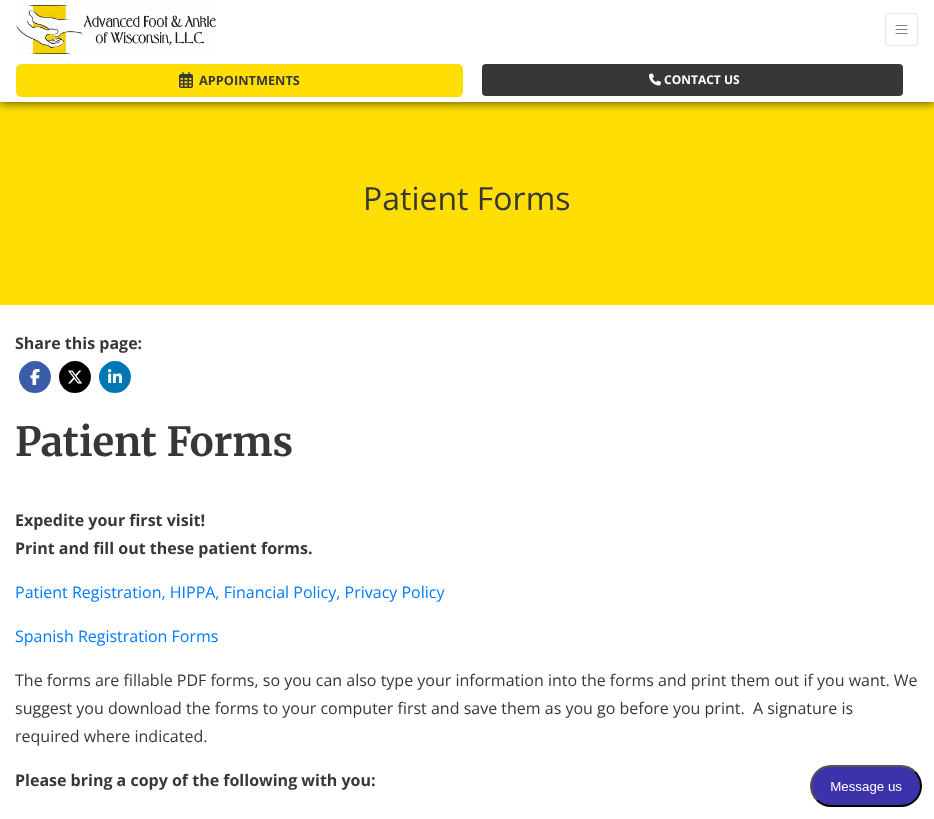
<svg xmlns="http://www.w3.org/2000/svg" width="934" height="819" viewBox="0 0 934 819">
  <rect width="100%" height="100%" fill="#fff"/>
  <path d="M0 102h934v203H0z" fill="#ffde03"/>
  <path d="M0 2h934v102H0z" fill="#0000008f" filter="blur(4px)"/>
  <path d="M0 0h934v102H0z" fill="#fff"/>
  <image x="16" y="5" width="200" height="49" href="img/1.png"/>
  <rect x="885.5" y="13.5" width="32" height="32" rx="3.5" fill="none" stroke="#e6e6e6"/>
  <image x="895" y="25" width="13" height="9" href="img/2.png"/>
  <rect x="16.5" y="64.5" width="446" height="32" rx="4.5" fill="#ffde03" stroke="#ffde03"/>
  <image x="179" y="72" width="14" height="16" href="img/3.png"/>
  <rect x="482" y="64" width="421" height="32" rx="4" fill="#373737"/>
  <image x="649" y="73" width="12" height="13" href="img/4.png"/>
  <path d="M35 393C50 393 57 373.5 44.5 364.5C42 362 38.5 361 35 361C31.5 361 28 362 25.5 364.5C13 373.5 20 393 35 393Z" fill="#3b5ca9"/>
  <image x="30" y="369" width="10" height="16" href="img/5.png"/>
  <path d="M75 393C90 393 97 373.5 84.5 364.5C82 362 78.5 361 75 361C71.5 361 68 362 65.5 364.5C53 373.5 60 393 75 393Z" fill="#000"/>
  <image x="68" y="370" width="15" height="14" href="img/6.png"/>
  <path d="M115 393C130 393 137 373.5 124.5 364.5C122 362 118.5 361 115 361C111.5 361 108 362 105.5 364.5C93 373.5 100 393 115 393Z" fill="#0077b5"/>
  <image x="108" y="369" width="14" height="14" href="img/7.png"/>
  <image x="810" y="765" width="112" height="42" href="img/8.png"/>
  <text x="199" y="85" font-family="Open Sans" font-size="12.75" font-weight="bold" fill="#373737">APPOINTMENTS</text>
  <text x="664" y="84" font-family="Open Sans" font-size="12" font-weight="bold" fill="#fff">CONTACT US</text>
  <text x="363" y="210" font-family="Open Sans" font-size="32" fill="#373737">Patient Forms</text>
  <text x="15" y="349" font-family="Open Sans" font-size="16" font-weight="bold" fill="#373737">Share this page:</text>
  <text x="15" y="456" font-family="Merriweather" font-size="40" font-weight="300" fill="#373737">Patient Forms</text>
  <g font-family="Open Sans" font-size="16" font-weight="bold" fill="#373737">
    <text x="15" y="526">Expedite your first visit!</text>
    <text x="15" y="554">Print and fill out these patient forms.</text>
  </g>
  <g font-family="Open Sans" font-size="16" fill="#007bff">
    <text x="15" y="598">Patient Registration, HIPPA, Financial Policy, Privacy Policy</text>
    <text x="15" y="642">Spanish Registration Forms</text>
  </g>
  <g font-family="Open Sans" font-size="16" fill="#373737">
    <text x="15" y="686">The forms are fillable PDF forms, so you can also type your information into the forms and print them out if you want. We</text>
    <text x="15" y="714" xml:space="preserve">suggest you download the forms to your computer first and save them as you go before you print.  A signature is</text>
    <text x="15" y="742">required where indicated.</text>
  </g>
  <text x="15" y="786" font-family="Open Sans" font-size="16" font-weight="bold" fill="#373737">Please bring a copy of the following with you:</text>
</svg>
